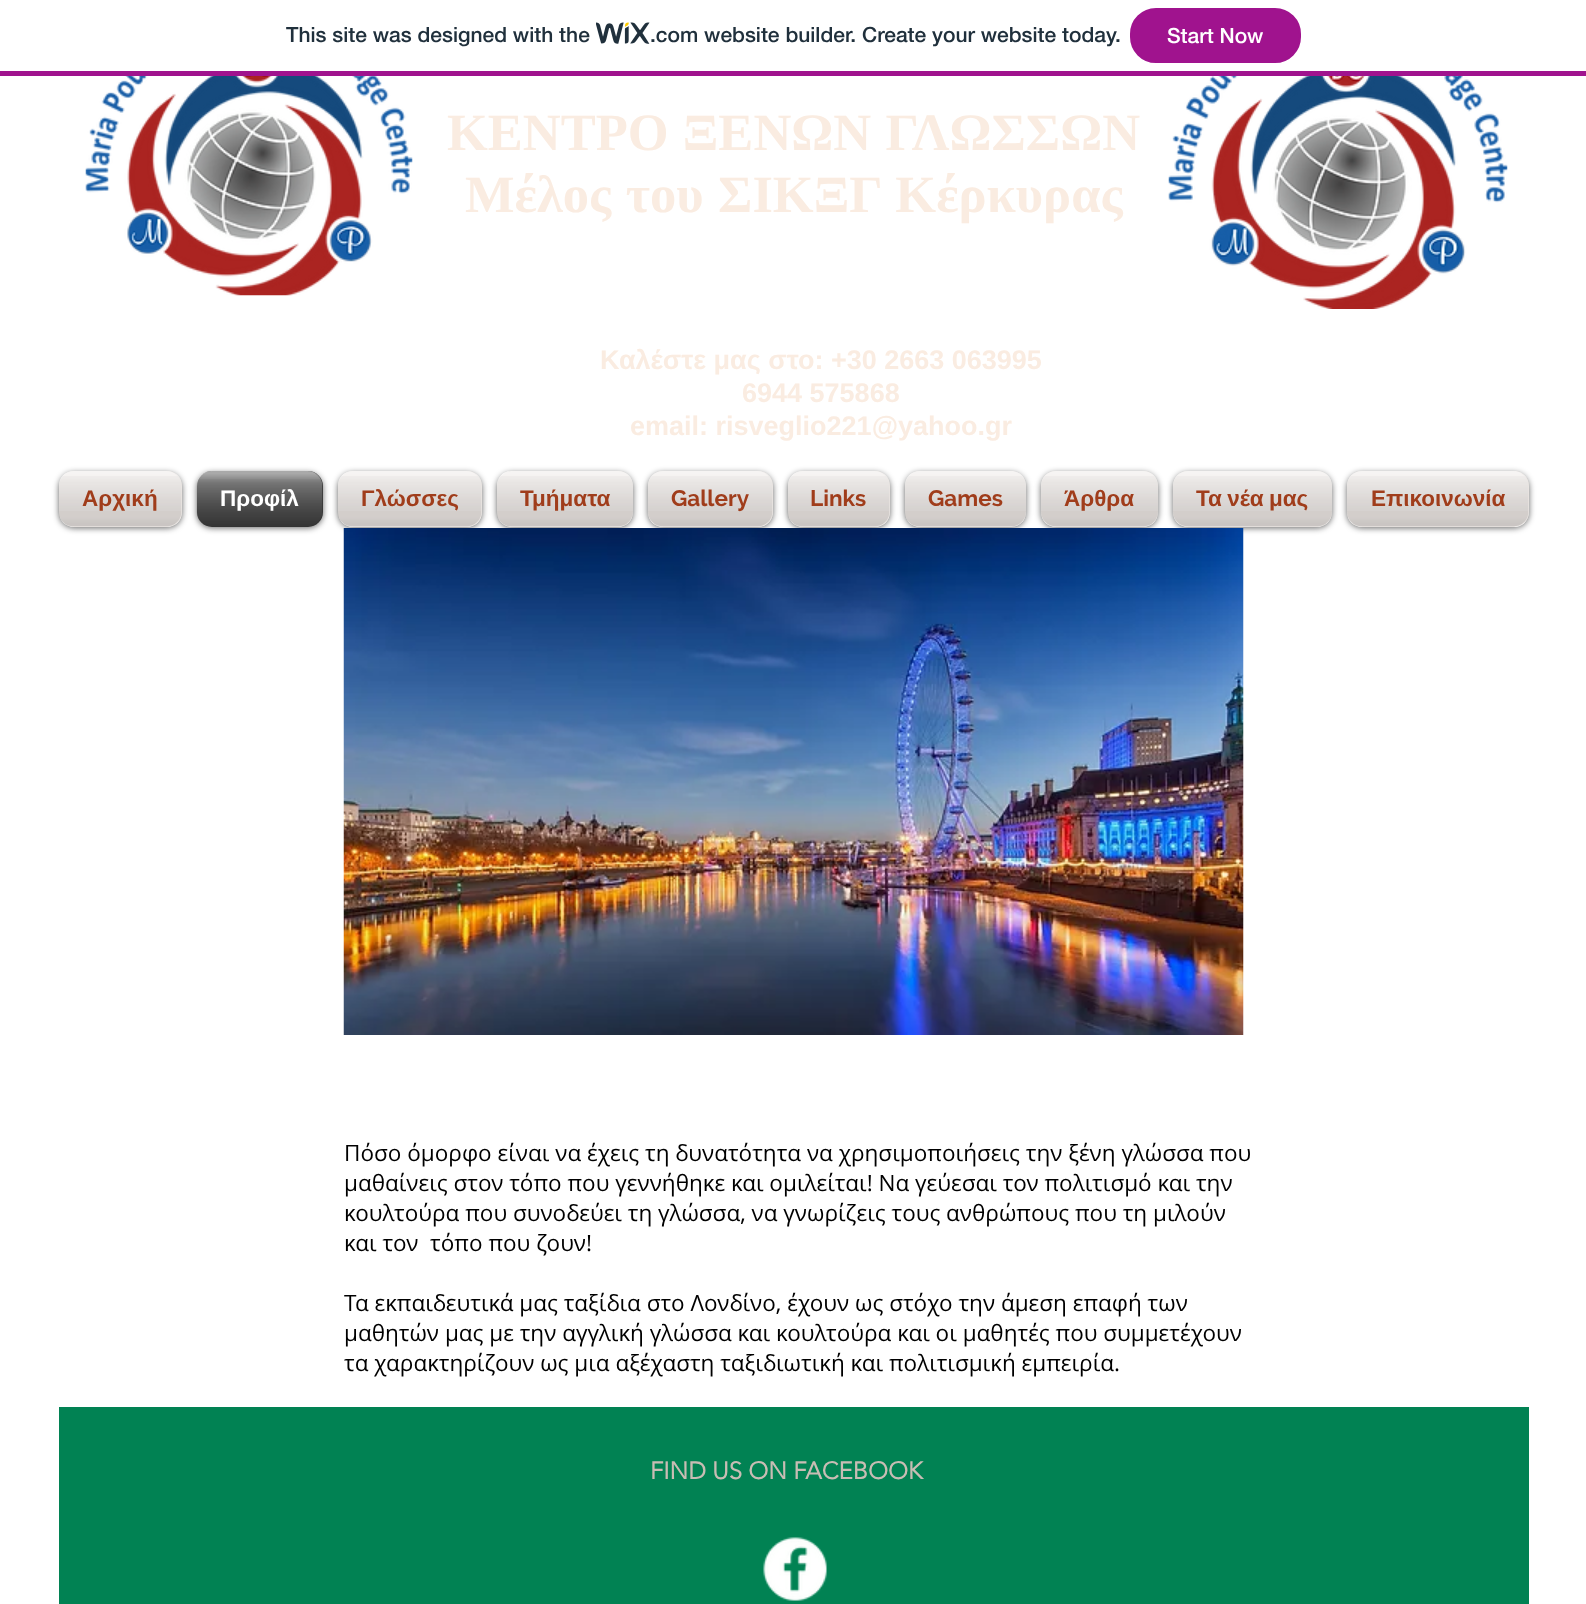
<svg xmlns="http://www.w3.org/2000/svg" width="1586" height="1604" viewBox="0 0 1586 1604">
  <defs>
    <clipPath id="clip1"><path d="M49 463H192V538H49ZM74 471H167C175.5 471 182 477.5 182 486V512C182 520.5 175.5 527 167 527H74C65.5 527 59 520.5 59 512V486C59 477.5 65.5 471 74 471Z" clip-rule="evenodd"/></clipPath>
    <clipPath id="clip2"><path d="M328 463H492V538H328ZM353 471H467C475.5 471 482 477.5 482 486V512C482 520.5 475.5 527 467 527H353C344.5 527 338 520.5 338 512V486C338 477.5 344.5 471 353 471Z" clip-rule="evenodd"/></clipPath>
    <clipPath id="clip3"><path d="M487 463H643V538H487ZM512 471H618C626.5 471 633 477.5 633 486V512C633 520.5 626.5 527 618 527H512C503.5 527 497 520.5 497 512V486C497 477.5 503.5 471 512 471Z" clip-rule="evenodd"/></clipPath>
    <clipPath id="clip4"><path d="M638 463H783V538H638ZM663 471H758C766.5 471 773 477.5 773 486V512C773 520.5 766.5 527 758 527H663C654.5 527 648 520.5 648 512V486C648 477.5 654.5 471 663 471Z" clip-rule="evenodd"/></clipPath>
    <clipPath id="clip5"><path d="M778 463H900V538H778ZM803 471H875C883.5 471 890 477.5 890 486V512C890 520.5 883.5 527 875 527H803C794.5 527 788 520.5 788 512V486C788 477.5 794.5 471 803 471Z" clip-rule="evenodd"/></clipPath>
    <clipPath id="clip6"><path d="M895 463H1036V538H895ZM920 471H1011C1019.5 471 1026 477.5 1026 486V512C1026 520.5 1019.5 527 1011 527H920C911.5 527 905 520.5 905 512V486C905 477.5 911.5 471 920 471Z" clip-rule="evenodd"/></clipPath>
    <clipPath id="clip7"><path d="M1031 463H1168V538H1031ZM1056 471H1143C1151.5 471 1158 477.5 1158 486V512C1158 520.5 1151.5 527 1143 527H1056C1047.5 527 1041 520.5 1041 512V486C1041 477.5 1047.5 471 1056 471Z" clip-rule="evenodd"/></clipPath>
    <clipPath id="clip8"><path d="M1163 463H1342V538H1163ZM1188 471H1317C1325.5 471 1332 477.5 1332 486V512C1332 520.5 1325.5 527 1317 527H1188C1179.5 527 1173 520.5 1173 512V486C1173 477.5 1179.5 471 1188 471Z" clip-rule="evenodd"/></clipPath>
    <clipPath id="clip9"><path d="M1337 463H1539V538H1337ZM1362 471H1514C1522.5 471 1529 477.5 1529 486V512C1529 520.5 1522.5 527 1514 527H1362C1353.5 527 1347 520.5 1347 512V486C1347 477.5 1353.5 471 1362 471Z" clip-rule="evenodd"/></clipPath>
  </defs>
  <rect width="100%" height="100%" fill="#fff"/>
  <path d="M0 71h1586v5H0z" fill="#a0138e"/>
  <image x="596" y="22" width="54" height="22" href="img/1.png"/>
  <rect x="1131" y="9" width="169" height="53" rx="25" fill="#a0138e" stroke="#a0138e" stroke-width="2"/>
  <image x="85" y="76" width="328" height="220" href="img/2.png"/>
  <image x="1168" y="76" width="340" height="233" href="img/3.png"/>
  <g clip-path="url(#clip1)">
    <rect x="59" y="473" width="123" height="55" rx="15" fill="#00000099" filter="blur(3px)"/>
  </g>
  <rect x="59" y="471" width="123" height="56" rx="15" fill="#c8bdb463"/>
  <image x="59" y="471" width="123" height="40" href="img/4.png"/>
  <image x="58" y="476" width="124" height="51" href="img/5.png"/>
  <rect x="197" y="473" width="126" height="55" rx="15" fill="#00000099" filter="blur(3px)"/>
  <rect x="197" y="471" width="126" height="56" rx="15" fill="#323232"/>
  <image x="197" y="471" width="126" height="55" href="img/6.png"/>
  <image x="196" y="479" width="126" height="47" href="img/7.png"/>
  <g clip-path="url(#clip2)">
    <rect x="338" y="473" width="144" height="55" rx="15" fill="#00000099" filter="blur(3px)"/>
  </g>
  <rect x="338" y="471" width="144" height="56" rx="15" fill="#c8bdb463"/>
  <image x="338" y="471" width="144" height="40" href="img/8.png"/>
  <image x="337" y="476" width="145" height="51" href="img/9.png"/>
  <g clip-path="url(#clip3)">
    <rect x="497" y="473" width="136" height="55" rx="15" fill="#00000099" filter="blur(3px)"/>
  </g>
  <rect x="497" y="471" width="136" height="56" rx="15" fill="#c8bdb463"/>
  <image x="497" y="471" width="136" height="40" href="img/10.png"/>
  <image x="496" y="476" width="137" height="51" href="img/11.png"/>
  <g clip-path="url(#clip4)">
    <rect x="648" y="473" width="125" height="55" rx="15" fill="#00000099" filter="blur(3px)"/>
  </g>
  <rect x="648" y="471" width="125" height="56" rx="15" fill="#c8bdb463"/>
  <image x="648" y="471" width="125" height="40" href="img/12.png"/>
  <image x="648" y="476" width="125" height="51" href="img/13.png"/>
  <g clip-path="url(#clip5)">
    <rect x="788" y="473" width="102" height="55" rx="15" fill="#00000099" filter="blur(3px)"/>
  </g>
  <rect x="788" y="471" width="102" height="56" rx="15" fill="#c8bdb463"/>
  <image x="788" y="471" width="102" height="40" href="img/14.png"/>
  <image x="787" y="476" width="103" height="51" href="img/15.png"/>
  <g clip-path="url(#clip6)">
    <rect x="905" y="473" width="121" height="55" rx="15" fill="#00000099" filter="blur(3px)"/>
  </g>
  <rect x="905" y="471" width="121" height="56" rx="15" fill="#c8bdb463"/>
  <image x="905" y="471" width="121" height="40" href="img/16.png"/>
  <image x="904" y="476" width="122" height="51" href="img/17.png"/>
  <g clip-path="url(#clip7)">
    <rect x="1041" y="473" width="117" height="55" rx="15" fill="#00000099" filter="blur(3px)"/>
  </g>
  <rect x="1041" y="471" width="117" height="56" rx="15" fill="#c8bdb463"/>
  <image x="1041" y="471" width="117" height="40" href="img/18.png"/>
  <image x="1041" y="476" width="117" height="51" href="img/19.png"/>
  <g clip-path="url(#clip8)">
    <rect x="1173" y="473" width="159" height="55" rx="15" fill="#00000099" filter="blur(3px)"/>
  </g>
  <rect x="1173" y="471" width="159" height="56" rx="15" fill="#c8bdb463"/>
  <image x="1173" y="471" width="159" height="40" href="img/20.png"/>
  <image x="1173" y="476" width="159" height="51" href="img/21.png"/>
  <g clip-path="url(#clip9)">
    <rect x="1347" y="473" width="182" height="55" rx="15" fill="#00000099" filter="blur(3px)"/>
  </g>
  <rect x="1347" y="471" width="182" height="56" rx="15" fill="#c8bdb463"/>
  <image x="1347" y="471" width="182" height="40" href="img/22.png"/>
  <image x="1347" y="476" width="182" height="51" href="img/23.png"/>
  <image x="343" y="528" width="901" height="507" href="img/24.png"/>
  <path d="M59 1407h1470v197H59z" fill="#018253"/>
  <image x="763" y="1537" width="64" height="64" href="img/25.png"/>
  <g font-family="'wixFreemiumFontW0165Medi'" font-size="21" font-weight="500" fill="#20303c">
    <text x="286" y="42">This site was designed with the</text>
    <text x="650" y="42">.com website builder. Create your website today.</text>
  </g>
  <text x="1167" y="43" font-family="'wixFreemiumFontW0165Medi'" font-size="21" font-weight="500" fill="#fff">Start Now</text>
  <g font-family="Liberation Serif" font-size="52.5" font-weight="bold" fill="#faece1">
    <text x="447" y="150" word-spacing="1">ΚΕΝΤΡΟ ΞΕΝΩΝ ΓΛΩΣΣΩΝ</text>
    <text x="465" y="212" word-spacing="1.5">Μέλος του ΣΙΚΞΓ Κέρκυρας</text>
  </g>
  <g font-family="Liberation Sans" font-size="27" font-weight="bold" fill="#faece1">
    <text x="600" y="369">Καλέστε μας στο: +30 2663 063995</text>
    <text x="742" y="402">6944 575868</text>
    <text x="630" y="435">email: risveglio221@yahoo.gr</text>
  </g>
  <text x="82" y="506" font-family="Liberation Sans" font-size="22.5" font-weight="bold" fill="#a03d1b">Αρχική</text>
  <text x="220" y="506" font-family="Liberation Sans" font-size="22.5" font-weight="bold" fill="#fff">Προφίλ</text>
  <g font-family="Liberation Sans" font-size="22.5" font-weight="bold" fill="#a03d1b">
    <text x="361" y="506">Γλώσσες</text>
    <text x="520" y="506">Τμήματα</text>
  </g>
  <g font-family="Raleway" font-size="22.5" font-weight="bold" fill="#a03d1b">
    <text x="671" y="506">Gallery</text>
    <text x="810" y="506">Links</text>
    <text x="928" y="506">Games</text>
  </g>
  <g font-family="Liberation Sans" font-size="22.5" font-weight="bold" fill="#a03d1b">
    <text x="1064" y="506">Άρθρα</text>
    <text x="1196" y="506" word-spacing="-1">Τα νέα μας</text>
    <text x="1371" y="506">Επικοινωνία</text>
  </g>
  <g font-family="Open Sans" font-size="22.5" fill="#000">
    <text x="344" y="1161">Πόσο όμορφο είναι να έχεις τη δυνατότητα να χρησιμοποιήσεις την ξένη γλώσσα που</text>
    <text x="344" y="1191">μαθαίνεις στον τόπο που γεννήθηκε και ομιλείται! Να γεύεσαι τον πολιτισμό και την</text>
    <text x="344" y="1221">κουλτούρα που συνοδεύει τη γλώσσα, να γνωρίζεις τους ανθρώπους που τη μιλούν</text>
    <text x="344" y="1251" xml:space="preserve">και τον  τόπο που ζουν!</text>
    <text x="344" y="1311">Τα εκπαιδευτικά μας ταξίδια στο Λονδίνο, έχουν ως στόχο την άμεση επαφή των</text>
    <text x="344" y="1341">μαθητών μας με την αγγλική γλώσσα και κουλτούρα και οι μαθητές που συμμετέχουν</text>
    <text x="344" y="1371">τα χαρακτηρίζουν ως μια αξέχαστη ταξιδιωτική και πολιτισμική εμπειρία.</text>
  </g>
  <text x="650" y="1479" font-family="'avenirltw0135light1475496'" font-size="24" font-weight="bold" fill="#c8bdb4">FIND US ON FACEBOOK</text>
</svg>
